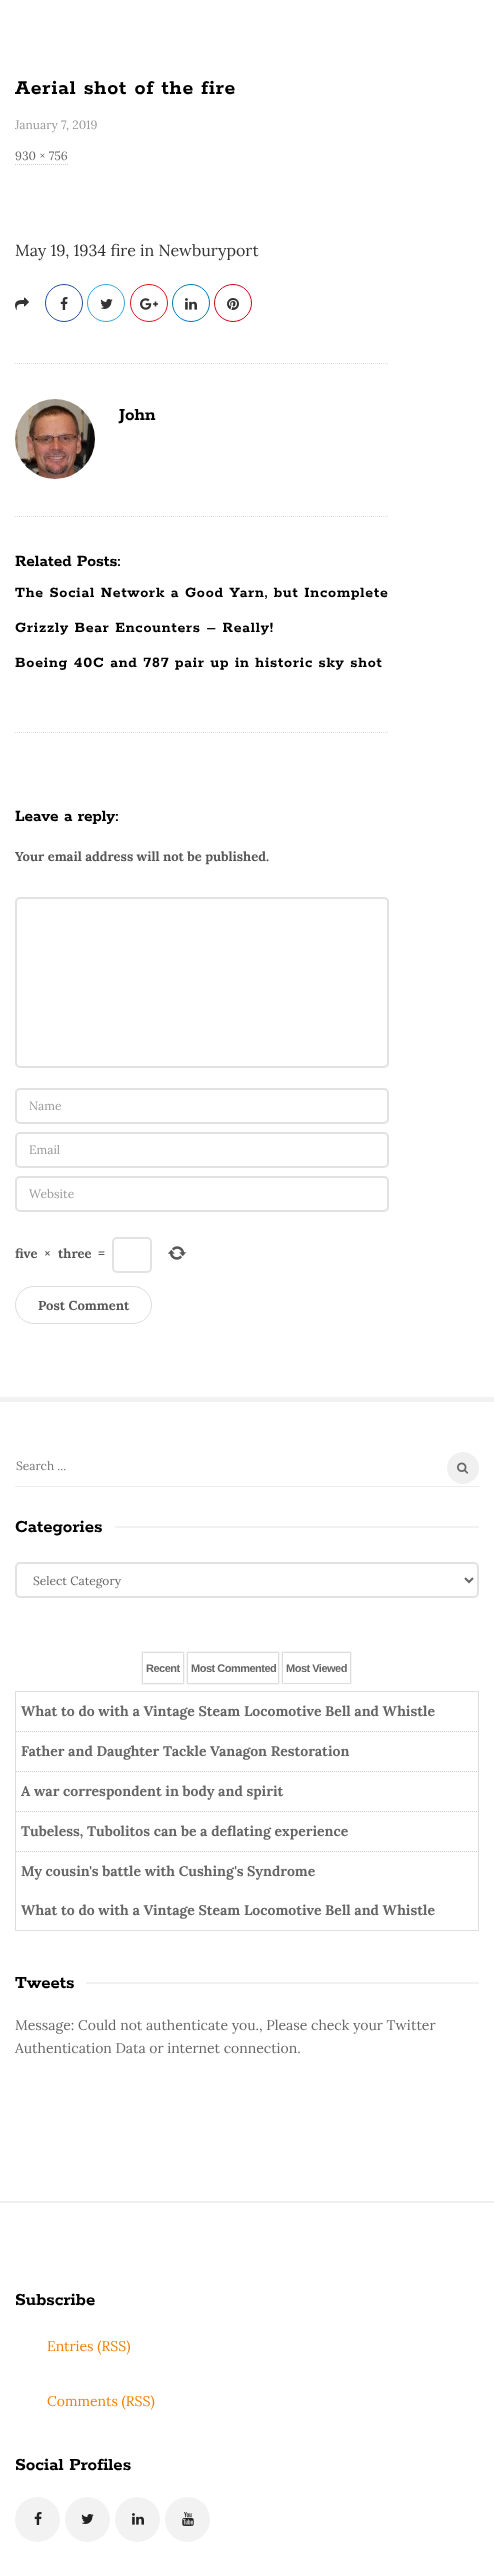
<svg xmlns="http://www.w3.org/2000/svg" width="494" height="2550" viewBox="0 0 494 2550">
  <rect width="100%" height="100%" fill="#fff"/>
  <path d="M15 363.5H389" fill="none" stroke="#ddd" stroke-dasharray="1 1"/>
  <path d="M15 164.5H68" fill="none" stroke="#ccc" stroke-dasharray="1 1"/>
  <image x="15" y="297" width="14" height="13" href="img/1.png"/>
  <circle cx="64" cy="303" r="18.5" fill="none" stroke="#234e9a"/>
  <image x="60" y="297" width="8" height="13" href="img/2.png"/>
  <circle cx="106" cy="303" r="18.5" fill="none" stroke="#32aadc"/>
  <image x="100" y="299" width="13" height="10" href="img/3.png"/>
  <circle cx="149" cy="303" r="18.5" fill="none" stroke="#e2131e"/>
  <image x="140" y="298" width="18" height="12" href="img/4.png"/>
  <circle cx="191" cy="303" r="18.5" fill="none" stroke="#007bb5"/>
  <image x="185" y="298" width="12" height="12" href="img/5.png"/>
  <circle cx="233" cy="303" r="18.5" fill="none" stroke="#c8071d"/>
  <image x="227" y="298" width="12" height="12" href="img/6.png"/>
  <path d="M15 516.5H389" fill="none" stroke="#ddd" stroke-dasharray="1 1"/>
  <image x="15" y="399" width="80" height="80" href="img/7.png"/>
  <path d="M15 732.5H389" fill="none" stroke="#ddd" stroke-dasharray="1 1"/>
  <rect x="16" y="898" width="372" height="169" rx="4" fill="none" stroke="#e2e2e2" stroke-width="2"/>
  <rect x="16" y="1089" width="372" height="34" rx="4" fill="none" stroke="#e2e2e2" stroke-width="2"/>
  <rect x="16" y="1133" width="372" height="34" rx="4" fill="none" stroke="#e2e2e2" stroke-width="2"/>
  <rect x="16" y="1177" width="372" height="34" rx="4" fill="none" stroke="#e2e2e2" stroke-width="2"/>
  <rect x="113" y="1238" width="38" height="34" rx="4" fill="none" stroke="#e2e2e2" stroke-width="2"/>
  <image x="167" y="1246" width="20" height="14" href="img/8.png"/>
  <rect x="15.5" y="1286.5" width="136" height="37" rx="18.5" fill="none" stroke="#ddd"/>
  <path d="M0 1397h494v5H0z" fill="#f2f2f2"/>
  <path d="M15 1486h464v1H15z" fill="#ececec"/>
  <circle cx="463" cy="1468" r="16" fill="#f0f0f0"/>
  <image x="457" y="1462" width="12" height="12" href="img/9.png"/>
  <path d="M115 1526h364v2H115z" fill="#f2f2f2"/>
  <rect x="16" y="1563" width="462" height="34" rx="4" fill="none" stroke="#e2e2e2" stroke-width="2"/>
  <path d="M465 1578L469 1582L473 1578" fill="none" stroke="#666" stroke-width="2"/>
  <path d="M141.5 1651.5h43v33H141.5z" fill="none" stroke="#f5f5f5"/>
  <path d="M142.5 1652.5h41v31H142.5z" fill="none" stroke="#ddd"/>
  <path d="M186.5 1651.5h93v33H186.5z" fill="none" stroke="#f5f5f5"/>
  <path d="M187.5 1652.5h91v31H187.5z" fill="none" stroke="#ddd"/>
  <path d="M281 1651h71v1H281z" fill="#f5f5f5"/>
  <path d="M351 1651h1v33H351z" fill="#f5f5f5"/>
  <path d="M281 1651h1v33H281z" fill="#f5f5f5"/>
  <path d="M282.5 1652.5h68v31H282.5z" fill="none" stroke="#ddd"/>
  <path d="M15.5 1691.5h463v239H15.5z" fill="none" stroke="#ddd"/>
  <path d="M16 1731.5H478" fill="none" stroke="#ccc" stroke-dasharray="1 1"/>
  <path d="M16 1771.5H478" fill="none" stroke="#ccc" stroke-dasharray="1 1"/>
  <path d="M16 1811.5H478" fill="none" stroke="#ccc" stroke-dasharray="1 1"/>
  <path d="M16 1851.5H478" fill="none" stroke="#ccc" stroke-dasharray="1 1"/>
  <path d="M86 1982h393v2H86z" fill="#f2f2f2"/>
  <path d="M0 2201h494v2H0z" fill="#efefef"/>
  <circle cx="37.5" cy="2519.5" r="22.5" fill="#f2f2f2"/>
  <image x="34" y="2512" width="8" height="13" href="img/10.png"/>
  <circle cx="87.5" cy="2519.5" r="22.5" fill="#f2f2f2"/>
  <image x="81" y="2514" width="13" height="10" href="img/11.png"/>
  <circle cx="137.5" cy="2519.5" r="22.5" fill="#f2f2f2"/>
  <image x="132" y="2513" width="12" height="12" href="img/12.png"/>
  <circle cx="187.5" cy="2519.5" r="22.5" fill="#f2f2f2"/>
  <image x="182" y="2512" width="12" height="14" href="img/13.png"/>
  <text x="15" y="94" font-family="Rokkitt" font-size="22" font-weight="bold" letter-spacing="0.8" fill="#000">Aerial shot of the fire</text>
  <text x="15" y="129" font-family="Lora" font-size="12" fill="#999">January 7, 2019</text>
  <text x="15" y="160" font-family="Lora" font-size="12" fill="#666">930 × 756</text>
  <text x="15" y="256" font-family="Lora" font-size="16" fill="#333">May 19, 1934 fire in Newburyport</text>
  <text x="119" y="420" font-family="Rokkitt" font-size="19" font-weight="bold" fill="#000">John</text>
  <text x="15" y="566" font-family="Rokkitt" font-size="17.5" font-weight="bold" fill="#000">Related Posts:</text>
  <g font-family="Rokkitt" font-size="16" font-weight="bold" letter-spacing="0.8" fill="#000">
    <text x="15" y="597">The Social Network a Good Yarn, but Incomplete</text>
    <text x="15" y="632">Grizzly Bear Encounters – Really!</text>
    <text x="15" y="667">Boeing 40C and 787 pair up in historic sky shot</text>
  </g>
  <text x="15" y="821" font-family="Rokkitt" font-size="17.5" font-weight="bold" fill="#000">Leave a reply:</text>
  <text x="15" y="861" font-family="Lora" font-size="13" font-weight="bold" fill="#575757">Your email address will not be published.</text>
  <g font-family="Lora" font-size="12" fill="#999">
    <text x="29" y="1110">Name</text>
    <text x="29" y="1154">Email</text>
    <text x="29" y="1198">Website</text>
  </g>
  <g font-family="Lora" font-size="13" font-weight="bold" fill="#575757">
    <text x="15" y="1258">five</text>
    <text x="44" y="1258">×</text>
    <text x="58" y="1258">three</text>
    <text x="98" y="1258">=</text>
    <text x="38" y="1310">Post Comment</text>
  </g>
  <text x="16" y="1470" font-family="Lora" font-size="12" fill="#757575">Search ...</text>
  <text x="15" y="1532" font-family="Rokkitt" font-size="19" font-weight="bold" fill="#000">Categories</text>
  <text x="33" y="1585" font-family="Lora" font-size="12" fill="#666">Select Category</text>
  <g font-family="Liberation Sans" font-size="11" font-weight="bold" letter-spacing="-0.5" fill="#666">
    <text x="146" y="1672">Recent</text>
    <text x="191" y="1672">Most Commented</text>
    <text x="286" y="1672">Most Viewed</text>
  </g>
  <g font-family="Lora" font-size="14" font-weight="bold" fill="#666">
    <text x="21" y="1716">What to do with a Vintage Steam Locomotive Bell and Whistle</text>
    <text x="21" y="1756">Father and Daughter Tackle Vanagon Restoration</text>
    <text x="21" y="1796">A war correspondent in body and spirit</text>
    <text x="21" y="1836">Tubeless, Tubolitos can be a deflating experience</text>
    <text x="21" y="1876">My cousin's battle with Cushing's Syndrome</text>
    <text x="21" y="1915">What to do with a Vintage Steam Locomotive Bell and Whistle</text>
  </g>
  <text x="15" y="1988" font-family="Rokkitt" font-size="19" font-weight="bold" fill="#000">Tweets</text>
  <g font-family="Lora" font-size="14" fill="#666">
    <text x="15" y="2030">Message: Could not authenticate you., Please check your Twitter</text>
    <text x="15" y="2053">Authentication Data or internet connection.</text>
  </g>
  <text x="15" y="2305" font-family="Rokkitt" font-size="19" font-weight="bold" fill="#000">Subscribe</text>
  <g font-family="Lora" font-size="14" fill="#f47e00">
    <text x="47" y="2351">Entries (RSS)</text>
    <text x="47" y="2406">Comments (RSS)</text>
  </g>
  <text x="15" y="2470" font-family="Rokkitt" font-size="19" font-weight="bold" fill="#000">Social Profiles</text>
</svg>
